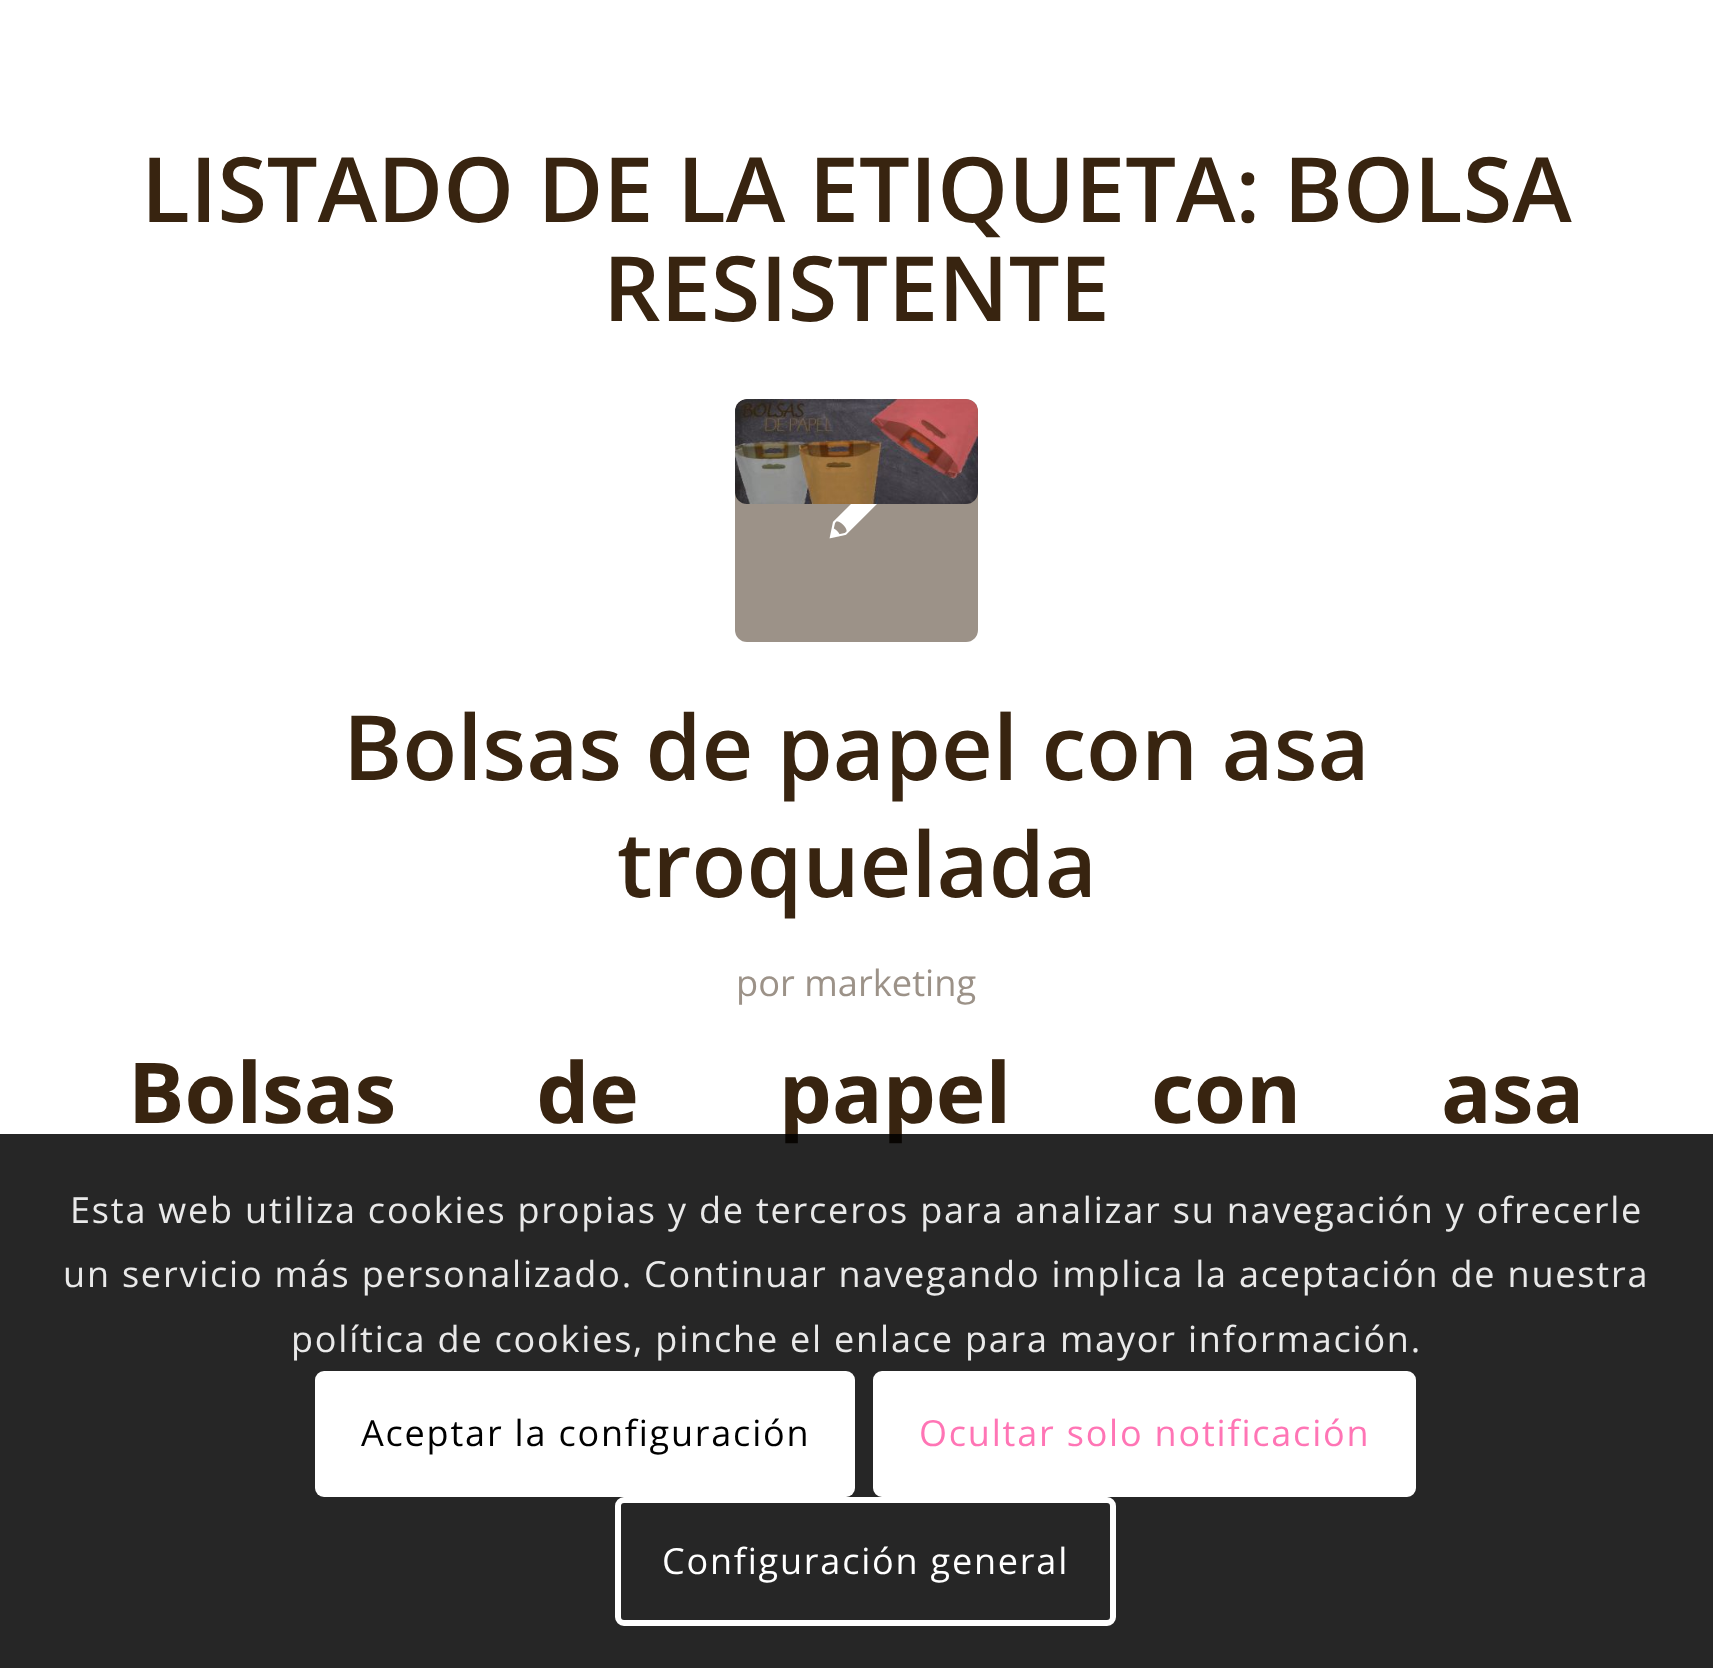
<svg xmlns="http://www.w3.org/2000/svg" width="1713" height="1668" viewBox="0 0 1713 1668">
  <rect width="100%" height="100%" fill="#fff"/>
  <rect x="735" y="399" width="243" height="243" rx="12" fill="#9c9288"/>
  <image x="735" y="399" width="243" height="105" href="img/1.png"/>
  <image x="829" y="504" width="48" height="35" href="img/2.png"/>
  <g font-family="Open Sans" font-size="90" font-weight="600" fill="#382410">
    <text x="141" y="222">LISTADO DE LA ETIQUETA: BOLSA</text>
    <text x="603" y="321">RESISTENTE</text>
    <text x="343" y="780">Bolsas de papel con asa</text>
    <text x="617" y="897">troquelada</text>
  </g>
  <text x="736" y="996" font-family="Open Sans" font-size="36.25" fill="#9c9288">por marketing</text>
  <text x="128" y="1123" word-spacing="118" font-family="Open Sans" font-size="84" font-weight="bold" fill="#382410">Bolsas de papel con asa</text>
  <path d="M0 1134h1713v534H0z" fill="#000000d9"/>
  <g font-family="Open Sans" font-size="36" letter-spacing="1.8" fill="#e9e9e9">
    <text x="70" y="1223">Esta web utiliza cookies propias y de terceros para analizar su navegación y ofrecerle</text>
    <text x="63" y="1287">un servicio más personalizado. Continuar navegando implica la aceptación de nuestra</text>
    <text x="291" y="1352">política de cookies, pinche el enlace para mayor información.</text>
  </g>
  <rect x="315" y="1371" width="540" height="126" rx="9" fill="#fff"/>
  <text x="361" y="1446" font-family="Open Sans" font-size="36" letter-spacing="1.8" fill="#000">Aceptar la configuración</text>
  <rect x="876" y="1374" width="537" height="120" rx="6" fill="#fff" stroke="#fff" stroke-width="6"/>
  <text x="919" y="1446" font-family="Open Sans" font-size="36" letter-spacing="1.8" fill="#ff75b5">Ocultar solo notificación</text>
  <rect x="618" y="1500" width="495" height="123" rx="6" fill="none" stroke="#fff" stroke-width="6"/>
  <text x="662" y="1574" font-family="Open Sans" font-size="36" letter-spacing="1.8" fill="#fff">Configuración general</text>
</svg>
